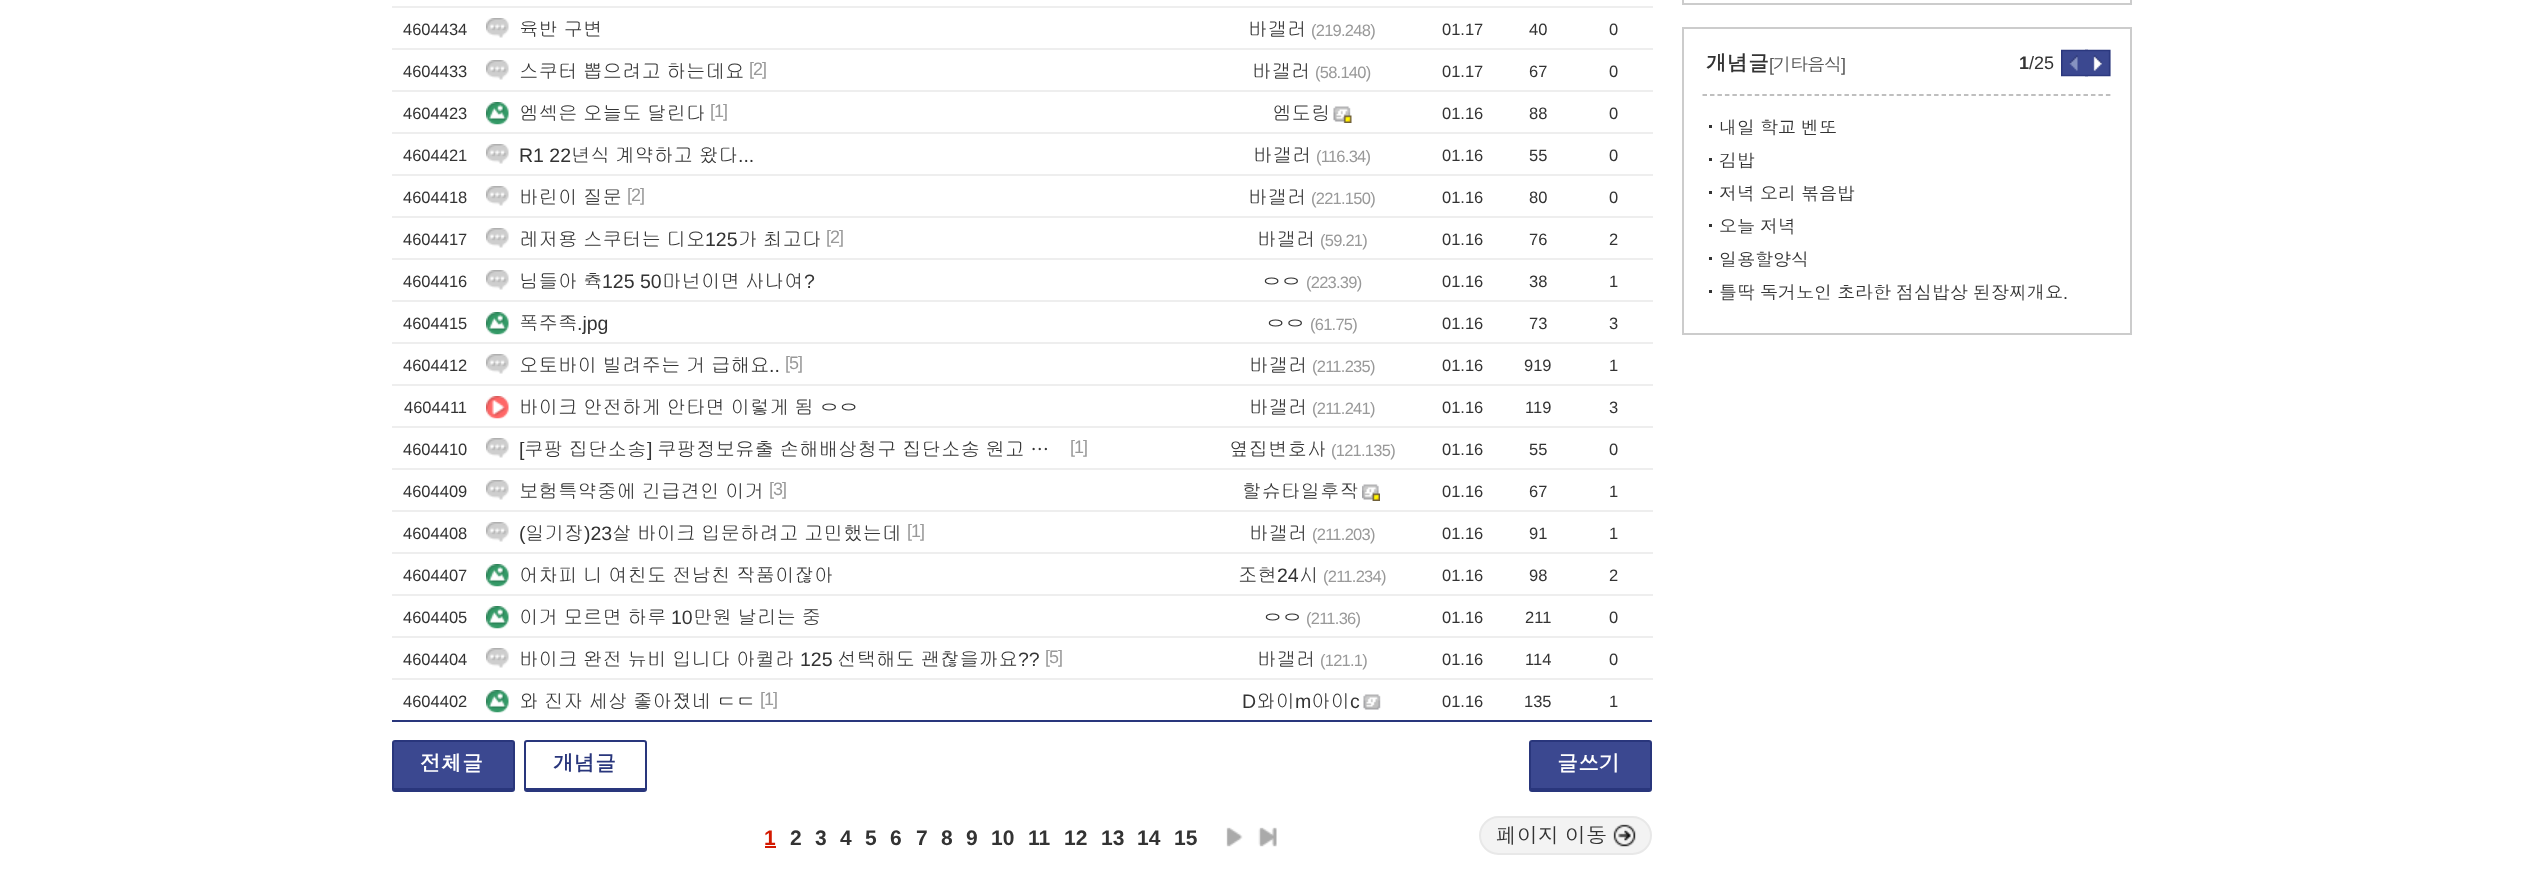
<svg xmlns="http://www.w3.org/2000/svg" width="2522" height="872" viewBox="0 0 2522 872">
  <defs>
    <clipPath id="clip1"><path d="M827 225h16v23H827z"/></clipPath>
    <clipPath id="clip2"><path d="M1046 645h16v23H1046z"/></clipPath>
    <clipPath id="clip3"><path d="M761 687h16v23H761z"/></clipPath>
  </defs>
  <rect width="100%" height="100%" fill="#fff"/>
  <path d="M392 720h1260v2H392z" fill="#29367c"/>
  <image x="486" y="18" width="23" height="20" href="img/1.png"/>
  <path d="M392 6h1261v2H392z" fill="#eee"/>
  <image x="486" y="60" width="23" height="20" href="img/1.png"/>
  <path d="M392 48h1261v2H392z" fill="#eee"/>
  <image x="486" y="102" width="23" height="23" href="img/2.png"/>
  <image x="1333" y="106" width="19" height="17" href="img/3.png"/>
  <path d="M392 90h1261v2H392z" fill="#eee"/>
  <image x="486" y="144" width="23" height="20" href="img/1.png"/>
  <path d="M392 132h1261v2H392z" fill="#eee"/>
  <image x="486" y="186" width="23" height="20" href="img/1.png"/>
  <path d="M392 174h1261v2H392z" fill="#eee"/>
  <image x="486" y="228" width="23" height="20" href="img/1.png"/>
  <path d="M392 216h1261v2H392z" fill="#eee"/>
  <image x="486" y="270" width="23" height="20" href="img/1.png"/>
  <path d="M392 258h1261v2H392z" fill="#eee"/>
  <image x="486" y="312" width="23" height="23" href="img/2.png"/>
  <path d="M392 300h1261v2H392z" fill="#eee"/>
  <image x="486" y="354" width="23" height="20" href="img/1.png"/>
  <path d="M392 342h1261v2H392z" fill="#eee"/>
  <image x="486" y="396" width="23" height="23" href="img/4.png"/>
  <path d="M392 384h1261v2H392z" fill="#eee"/>
  <image x="486" y="438" width="23" height="20" href="img/1.png"/>
  <path d="M392 426h1261v2H392z" fill="#eee"/>
  <image x="486" y="480" width="23" height="20" href="img/1.png"/>
  <image x="1362" y="484" width="18" height="17" href="img/5.png"/>
  <path d="M392 468h1261v2H392z" fill="#eee"/>
  <image x="486" y="522" width="23" height="20" href="img/1.png"/>
  <path d="M392 510h1261v2H392z" fill="#eee"/>
  <image x="486" y="564" width="23" height="23" href="img/2.png"/>
  <path d="M392 552h1261v2H392z" fill="#eee"/>
  <image x="486" y="606" width="23" height="23" href="img/2.png"/>
  <path d="M392 594h1261v2H392z" fill="#eee"/>
  <image x="486" y="648" width="23" height="20" href="img/1.png"/>
  <path d="M392 636h1261v2H392z" fill="#eee"/>
  <image x="486" y="690" width="23" height="23" href="img/2.png"/>
  <image x="1363" y="694" width="18" height="16" href="img/6.png"/>
  <path d="M392 678h1261v2H392z" fill="#eee"/>
  <path d="M394 741H512C512 741 513 742 513 742V788H393V742C393 742 394 741 394 741Z" fill="#3b4890"/>
  <rect x="393" y="741" width="121" height="50" rx="2" fill="none" stroke="#29367c" stroke-width="2"/>
  <path d="M393 788h120v2H393z" fill="#29367c"/>
  <rect x="525" y="741" width="121" height="50" rx="2" fill="none" stroke="#29367c" stroke-width="2"/>
  <path d="M525 788h120v2H525z" fill="#29367c"/>
  <path d="M1532 741H1648C1649 741 1650 742 1650 742V788H1530V742C1530 742 1531 741 1532 741Z" fill="#3b4890"/>
  <rect x="1530" y="741" width="121" height="50" rx="2" fill="none" stroke="#29367c" stroke-width="2"/>
  <path d="M1530 788h120v2H1530z" fill="#29367c"/>
  <path d="M765 846h11v2H765z" fill="#d31900"/>
  <image x="1226" y="827" width="17" height="20" href="img/7.png"/>
  <image x="1258" y="827" width="19" height="20" href="img/8.png"/>
  <rect x="1480" y="817" width="171" height="37" rx="18.5" fill="#f3f3f3" stroke="#e8e8e8" stroke-width="2"/>
  <image x="1613" y="824" width="23" height="23" href="img/9.png"/>
  <path d="M1683 -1h448v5H1683z" fill="none" stroke="#ccc" stroke-width="2"/>
  <path d="M1683 28h448v306H1683z" fill="none" stroke="#ccc" stroke-width="2"/>
  <path d="M1702.5 95H2110.5" fill="none" stroke="#aaa" stroke-width="1.5" stroke-dasharray="4.5 2.97"/>
  <image x="2061" y="49" width="27" height="28" href="img/10.png"/>
  <image x="2085" y="49" width="26" height="28" href="img/11.png"/>
  <path d="M1709 125h3v3H1709z" fill="#333"/>
  <path d="M1709 158h3v3H1709z" fill="#333"/>
  <path d="M1709 191h3v3H1709z" fill="#333"/>
  <path d="M1709 224h3v3H1709z" fill="#333"/>
  <path d="M1709 257h3v3H1709z" fill="#333"/>
  <path d="M1709 290h3v3H1709z" fill="#333"/>
  <text x="403" y="35" font-family="Liberation Sans" font-size="16.5" fill="#333">4604434</text>
  <g font-family="Gulim" font-size="19.5" fill="#333">
    <text x="519" y="36" word-spacing="-1">육반 구변</text>
    <text x="1248" y="36">바갤러</text>
  </g>
  <text x="1311" y="36" font-family="Liberation Sans" font-size="16.5" letter-spacing="-0.75" fill="#999">(219.248)</text>
  <g font-family="Liberation Sans" font-size="16.5" fill="#333">
    <text x="1442" y="35">01.17</text>
    <text x="1529" y="35">40</text>
    <text x="1609" y="35">0</text>
    <text x="403" y="77">4604433</text>
  </g>
  <text x="519" y="78" word-spacing="-1" font-family="Gulim" font-size="19.5" fill="#333">스쿠터 뽑으려고 하는데요</text>
  <text x="749" y="75" font-family="Liberation Sans" font-size="18" letter-spacing="-1" fill="#999">[2]</text>
  <text x="1252" y="78" font-family="Gulim" font-size="19.5" fill="#333">바갤러</text>
  <text x="1315" y="78" font-family="Liberation Sans" font-size="16.5" letter-spacing="-0.75" fill="#999">(58.140)</text>
  <g font-family="Liberation Sans" font-size="16.5" fill="#333">
    <text x="1442" y="77">01.17</text>
    <text x="1529" y="77">67</text>
    <text x="1609" y="77">0</text>
    <text x="403" y="119">4604423</text>
  </g>
  <text x="519" y="120" word-spacing="-1" font-family="Gulim" font-size="19.5" fill="#333">엠섹은 오늘도 달린다</text>
  <text x="710" y="117" font-family="Liberation Sans" font-size="18" letter-spacing="-1" fill="#999">[1]</text>
  <text x="1272" y="120" font-family="Gulim" font-size="19.5" fill="#333">엠도링</text>
  <g font-family="Liberation Sans" font-size="16.5" fill="#333">
    <text x="1442" y="119">01.16</text>
    <text x="1529" y="119">88</text>
    <text x="1609" y="119">0</text>
    <text x="403" y="161">4604421</text>
  </g>
  <text x="519" y="162" font-family="Liberation Sans" font-size="19.5" fill="#333">R1 22</text>
  <g font-family="Gulim" font-size="19.5" fill="#333">
    <text x="571" y="162">년식</text>
    <text x="615" y="162">계약하고</text>
    <text x="699" y="162">왔다</text>
  </g>
  <text x="738" y="162" font-family="Liberation Sans" font-size="19.5" fill="#333">...</text>
  <text x="1253" y="162" font-family="Gulim" font-size="19.5" fill="#333">바갤러</text>
  <text x="1316" y="162" font-family="Liberation Sans" font-size="16.5" letter-spacing="-0.75" fill="#999">(116.34)</text>
  <g font-family="Liberation Sans" font-size="16.5" fill="#333">
    <text x="1442" y="161">01.16</text>
    <text x="1529" y="161">55</text>
    <text x="1609" y="161">0</text>
    <text x="403" y="203">4604418</text>
  </g>
  <text x="519" y="204" word-spacing="-1" font-family="Gulim" font-size="19.5" fill="#333">바린이 질문</text>
  <text x="627" y="201" font-family="Liberation Sans" font-size="18" letter-spacing="-1" fill="#999">[2]</text>
  <text x="1248" y="204" font-family="Gulim" font-size="19.5" fill="#333">바갤러</text>
  <text x="1311" y="204" font-family="Liberation Sans" font-size="16.5" letter-spacing="-0.75" fill="#999">(221.150)</text>
  <g font-family="Liberation Sans" font-size="16.5" fill="#333">
    <text x="1442" y="203">01.16</text>
    <text x="1529" y="203">80</text>
    <text x="1609" y="203">0</text>
    <text x="403" y="245">4604417</text>
  </g>
  <text x="519" y="246" word-spacing="-1" font-family="Gulim" font-size="19.5" fill="#333">레저용 스쿠터는 디오</text>
  <text x="705" y="246" font-family="Liberation Sans" font-size="19.5" fill="#333">125</text>
  <text x="738" y="246" word-spacing="-1" font-family="Gulim" font-size="19.5" fill="#333">가 최고다</text>
  <g clip-path="url(#clip1)">
    <text x="826" y="243" font-family="Liberation Sans" font-size="18" letter-spacing="-1" fill="#999">[2]</text>
  </g>
  <text x="1257" y="246" font-family="Gulim" font-size="19.5" fill="#333">바갤러</text>
  <text x="1320" y="246" font-family="Liberation Sans" font-size="16.5" letter-spacing="-0.75" fill="#999">(59.21)</text>
  <g font-family="Liberation Sans" font-size="16.5" fill="#333">
    <text x="1442" y="245">01.16</text>
    <text x="1529" y="245">76</text>
    <text x="1609" y="245">2</text>
    <text x="403" y="287">4604416</text>
  </g>
  <g font-family="Gulim" font-size="19.5" fill="#333">
    <text x="519" y="288">님들아</text>
    <text x="583" y="288">츅</text>
  </g>
  <text x="602" y="288" font-family="Liberation Sans" font-size="19.5" fill="#333">125 50</text>
  <g font-family="Gulim" font-size="19.5" fill="#333">
    <text x="662" y="288">마넌이면</text>
    <text x="745" y="288">사나여</text>
  </g>
  <text x="804" y="288" font-family="Liberation Sans" font-size="19.5" fill="#333">?</text>
  <text x="1262" y="288" font-family="Gulim" font-size="19.5" fill="#333">ㅇㅇ</text>
  <text x="1306" y="288" font-family="Liberation Sans" font-size="16.5" letter-spacing="-0.75" fill="#999">(223.39)</text>
  <g font-family="Liberation Sans" font-size="16.5" fill="#333">
    <text x="1442" y="287">01.16</text>
    <text x="1529" y="287">38</text>
    <text x="1609" y="287">1</text>
    <text x="403" y="329">4604415</text>
  </g>
  <text x="519" y="330" font-family="Gulim" font-size="19.5" fill="#333">폭주족</text>
  <text x="577" y="330" font-family="Liberation Sans" font-size="19.5" fill="#333">.jpg</text>
  <text x="1266" y="330" font-family="Gulim" font-size="19.5" fill="#333">ㅇㅇ</text>
  <text x="1310" y="330" font-family="Liberation Sans" font-size="16.5" letter-spacing="-0.75" fill="#999">(61.75)</text>
  <g font-family="Liberation Sans" font-size="16.5" fill="#333">
    <text x="1442" y="329">01.16</text>
    <text x="1529" y="329">73</text>
    <text x="1609" y="329">3</text>
    <text x="403" y="371">4604412</text>
  </g>
  <text x="519" y="372" word-spacing="-1" font-family="Gulim" font-size="19.5" fill="#333">오토바이 빌려주는 거 급해요</text>
  <text x="769" y="372" font-family="Liberation Sans" font-size="19.5" fill="#333">..</text>
  <text x="785" y="369" font-family="Liberation Sans" font-size="18" letter-spacing="-1" fill="#999">[5]</text>
  <text x="1249" y="372" font-family="Gulim" font-size="19.5" fill="#333">바갤러</text>
  <text x="1312" y="372" font-family="Liberation Sans" font-size="16.5" letter-spacing="-0.75" fill="#999">(211.235)</text>
  <g font-family="Liberation Sans" font-size="16.5" fill="#333">
    <text x="1442" y="371">01.16</text>
    <text x="1524" y="371">919</text>
    <text x="1609" y="371">1</text>
    <text x="404" y="413">4604411</text>
  </g>
  <g font-family="Gulim" font-size="19.5" fill="#333">
    <text x="519" y="414" word-spacing="-1">바이크 안전하게 안타면 이렇게 됨 ㅇㅇ</text>
    <text x="1249" y="414">바갤러</text>
  </g>
  <text x="1312" y="414" font-family="Liberation Sans" font-size="16.5" letter-spacing="-0.75" fill="#999">(211.241)</text>
  <g font-family="Liberation Sans" font-size="16.5" fill="#333">
    <text x="1442" y="413">01.16</text>
    <text x="1525" y="413">119</text>
    <text x="1609" y="413">3</text>
    <text x="403" y="455">4604410</text>
  </g>
  <text x="519" y="456" font-family="Liberation Sans" font-size="19.5" fill="#333">[</text>
  <text x="524" y="456" word-spacing="-1" font-family="Gulim" font-size="19.5" fill="#333">쿠팡 집단소송</text>
  <text x="647" y="456" font-family="Liberation Sans" font-size="19.5" fill="#333">]</text>
  <text x="657" y="456" word-spacing="-1" font-family="Gulim" font-size="19.5" fill="#333">쿠팡정보유출 손해배상청구 집단소송 원고 …</text>
  <text x="1070" y="453" font-family="Liberation Sans" font-size="18" letter-spacing="-1" fill="#999">[1]</text>
  <text x="1229" y="456" font-family="Gulim" font-size="19.5" fill="#333">옆집변호사</text>
  <text x="1331" y="456" font-family="Liberation Sans" font-size="16.5" letter-spacing="-0.75" fill="#999">(121.135)</text>
  <g font-family="Liberation Sans" font-size="16.5" fill="#333">
    <text x="1442" y="455">01.16</text>
    <text x="1529" y="455">55</text>
    <text x="1609" y="455">0</text>
    <text x="403" y="497">4604409</text>
  </g>
  <text x="519" y="498" word-spacing="-1" font-family="Gulim" font-size="19.5" fill="#333">보험특약중에 긴급견인 이거</text>
  <text x="769" y="495" font-family="Liberation Sans" font-size="18" letter-spacing="-1" fill="#999">[3]</text>
  <text x="1242" y="498" font-family="Gulim" font-size="19.5" fill="#333">할슈타일후작</text>
  <g font-family="Liberation Sans" font-size="16.5" fill="#333">
    <text x="1442" y="497">01.16</text>
    <text x="1529" y="497">67</text>
    <text x="1609" y="497">1</text>
    <text x="403" y="539">4604408</text>
  </g>
  <text x="519" y="540" font-family="Liberation Sans" font-size="19.5" fill="#333">(</text>
  <text x="525" y="540" font-family="Gulim" font-size="19.5" fill="#333">일기장</text>
  <text x="584" y="540" font-family="Liberation Sans" font-size="19.5" fill="#333">)23</text>
  <text x="612" y="540" word-spacing="-1" font-family="Gulim" font-size="19.5" fill="#333">살 바이크 입문하려고 고민했는데</text>
  <text x="907" y="537" font-family="Liberation Sans" font-size="18" letter-spacing="-1" fill="#999">[1]</text>
  <text x="1249" y="540" font-family="Gulim" font-size="19.5" fill="#333">바갤러</text>
  <text x="1312" y="540" font-family="Liberation Sans" font-size="16.5" letter-spacing="-0.75" fill="#999">(211.203)</text>
  <g font-family="Liberation Sans" font-size="16.5" fill="#333">
    <text x="1442" y="539">01.16</text>
    <text x="1529" y="539">91</text>
    <text x="1609" y="539">1</text>
    <text x="403" y="581">4604407</text>
  </g>
  <g font-family="Gulim" font-size="19.5" fill="#333">
    <text x="519" y="582" word-spacing="-1">어차피 니 여친도 전남친 작품이잖아</text>
    <text x="1238" y="582">조현</text>
  </g>
  <text x="1277" y="582" font-family="Liberation Sans" font-size="19.5" fill="#333">24</text>
  <text x="1299" y="582" font-family="Gulim" font-size="19.5" fill="#333">시</text>
  <text x="1323" y="582" font-family="Liberation Sans" font-size="16.5" letter-spacing="-0.75" fill="#999">(211.234)</text>
  <g font-family="Liberation Sans" font-size="16.5" fill="#333">
    <text x="1442" y="581">01.16</text>
    <text x="1529" y="581">98</text>
    <text x="1609" y="581">2</text>
    <text x="403" y="623">4604405</text>
  </g>
  <text x="519" y="624" word-spacing="-1" font-family="Gulim" font-size="19.5" fill="#333">이거 모르면 하루</text>
  <text x="671" y="624" font-family="Liberation Sans" font-size="19.5" fill="#333">10</text>
  <g font-family="Gulim" font-size="19.5" fill="#333">
    <text x="693" y="624" word-spacing="-1">만원 날리는 중</text>
    <text x="1263" y="624">ㅇㅇ</text>
  </g>
  <text x="1306" y="624" font-family="Liberation Sans" font-size="16.5" letter-spacing="-0.75" fill="#999">(211.36)</text>
  <g font-family="Liberation Sans" font-size="16.5" fill="#333">
    <text x="1442" y="623">01.16</text>
    <text x="1525" y="623">211</text>
    <text x="1609" y="623">0</text>
    <text x="403" y="665">4604404</text>
  </g>
  <text x="519" y="666" word-spacing="-1" font-family="Gulim" font-size="19.5" fill="#333">바이크 완전 뉴비 입니다 아퀼라</text>
  <text x="800" y="666" font-family="Liberation Sans" font-size="19.5" fill="#333">125</text>
  <text x="837" y="666" word-spacing="-1" font-family="Gulim" font-size="19.5" fill="#333">선택해도 괜찮을까요</text>
  <text x="1018" y="666" font-family="Liberation Sans" font-size="19.5" fill="#333">??</text>
  <g clip-path="url(#clip2)">
    <text x="1045" y="663" font-family="Liberation Sans" font-size="18" letter-spacing="-1" fill="#999">[5]</text>
  </g>
  <text x="1257" y="666" font-family="Gulim" font-size="19.5" fill="#333">바갤러</text>
  <text x="1320" y="666" font-family="Liberation Sans" font-size="16.5" letter-spacing="-0.75" fill="#999">(121.1)</text>
  <g font-family="Liberation Sans" font-size="16.5" fill="#333">
    <text x="1442" y="665">01.16</text>
    <text x="1525" y="665">114</text>
    <text x="1609" y="665">0</text>
    <text x="403" y="707">4604402</text>
  </g>
  <text x="519" y="708" word-spacing="-1" font-family="Gulim" font-size="19.5" fill="#333">와 진자 세상 좋아졌네 ㄷㄷ</text>
  <g clip-path="url(#clip3)">
    <text x="760" y="705" font-family="Liberation Sans" font-size="18" letter-spacing="-1" fill="#999">[1]</text>
  </g>
  <text x="1242" y="708" font-family="Liberation Sans" font-size="19.5" fill="#333">D</text>
  <text x="1256" y="708" font-family="Gulim" font-size="19.5" fill="#333">와이</text>
  <text x="1295" y="708" font-family="Liberation Sans" font-size="19.5" fill="#333">m</text>
  <text x="1311" y="708" font-family="Gulim" font-size="19.5" fill="#333">아이</text>
  <text x="1350" y="708" font-family="Liberation Sans" font-size="19.5" fill="#333">c</text>
  <g font-family="Liberation Sans" font-size="16.5" fill="#333">
    <text x="1442" y="707">01.16</text>
    <text x="1524" y="707">135</text>
    <text x="1609" y="707">1</text>
  </g>
  <text x="420" y="771" font-family="Dotum" font-size="21" font-weight="bold" fill="#fff">전체글</text>
  <text x="553" y="771" font-family="Dotum" font-size="21" font-weight="bold" fill="#29367c">개념글</text>
  <text x="1557" y="771" font-family="Dotum" font-size="21" font-weight="bold" fill="#fff">글쓰기</text>
  <text x="764" y="845" font-family="Liberation Sans" font-size="21" font-weight="bold" fill="#d31900">1</text>
  <g font-family="Liberation Sans" font-size="21" font-weight="bold" fill="#333">
    <text x="790" y="845">2</text>
    <text x="815" y="845">3</text>
    <text x="840" y="845">4</text>
    <text x="865" y="845">5</text>
    <text x="890" y="845">6</text>
    <text x="916" y="845">7</text>
    <text x="941" y="845">8</text>
    <text x="966" y="845">9</text>
    <text x="991" y="845">10</text>
    <text x="1028" y="845">11</text>
    <text x="1064" y="845">12</text>
    <text x="1101" y="845">13</text>
    <text x="1137" y="845">14</text>
    <text x="1174" y="845">15</text>
  </g>
  <text x="1496" y="843" word-spacing="-1" font-family="Dotum" font-size="21" fill="#333">페이지 이동</text>
  <text x="1706" y="71" font-family="Dotum" font-size="21" font-weight="bold" fill="#333">개념글</text>
  <text x="1769" y="71" font-family="Liberation Sans" font-size="18" letter-spacing="-1" fill="#555">[</text>
  <text x="1773" y="71" font-family="Dotum" font-size="18" letter-spacing="-1" fill="#555">기타음식</text>
  <text x="1841" y="71" font-family="Liberation Sans" font-size="18" letter-spacing="-1" fill="#555">]</text>
  <text x="2019" y="69" font-family="Liberation Sans" font-size="18" font-weight="bold" fill="#333">1</text>
  <text x="2029" y="69" font-family="Liberation Sans" font-size="18" fill="#333">/25</text>
  <g font-family="Dotum" font-size="18" fill="#333">
    <text x="1719" y="134" word-spacing="-1">내일 학교 벤또</text>
    <text x="1719" y="167">김밥</text>
    <text x="1719" y="200" word-spacing="-1">저녁 오리 볶음밥</text>
    <text x="1719" y="233" word-spacing="-1">오늘 저녁</text>
    <text x="1719" y="266">일용할양식</text>
    <text x="1719" y="299" word-spacing="-1">틀딱 독거노인 초라한 점심밥상 된장찌개요</text>
  </g>
  <text x="2063" y="299" font-family="Liberation Sans" font-size="18" fill="#333">.</text>
</svg>
